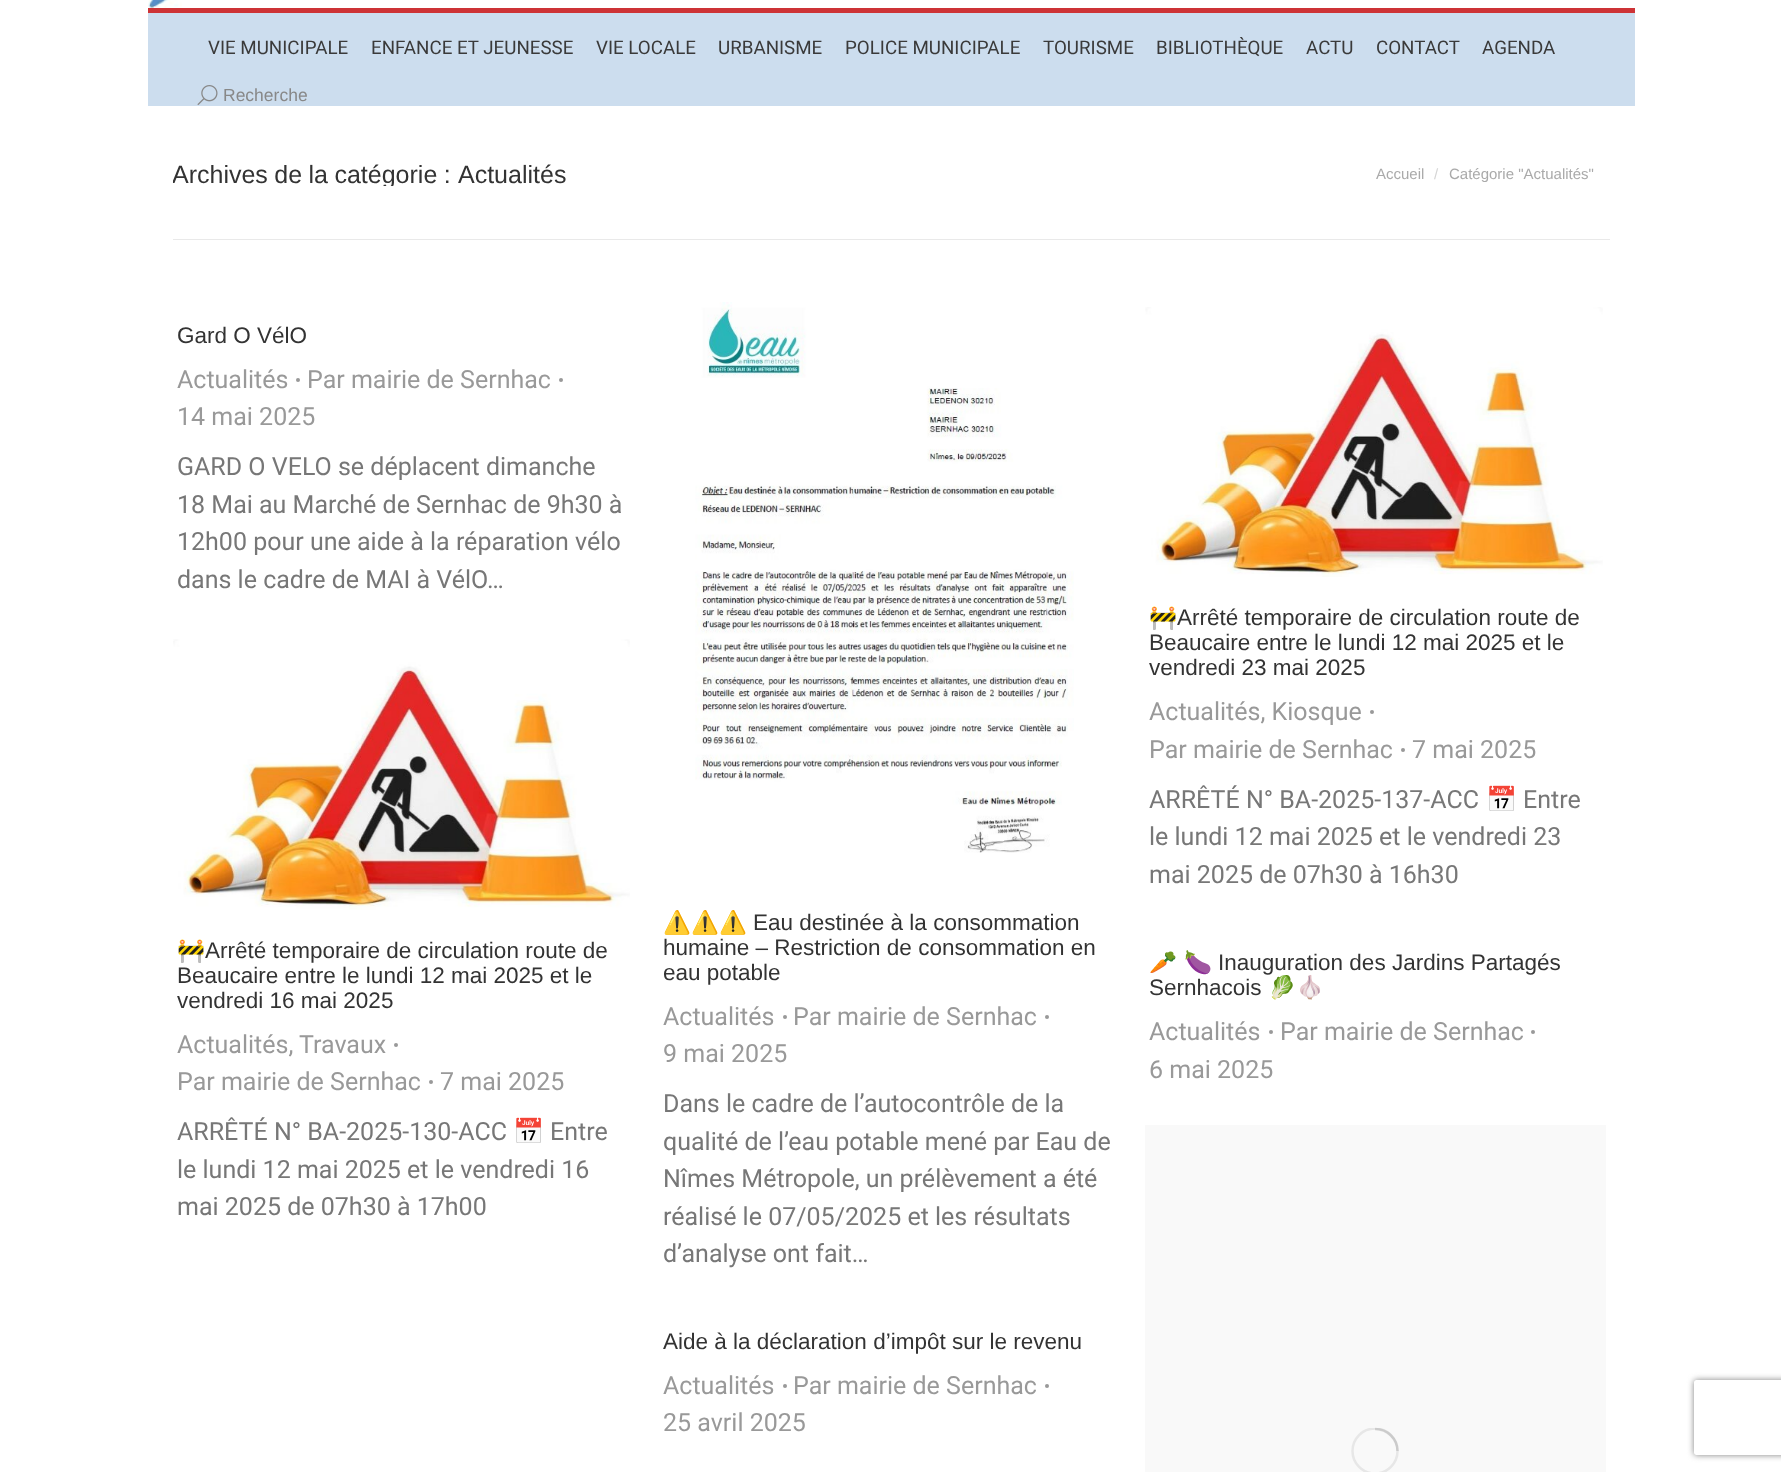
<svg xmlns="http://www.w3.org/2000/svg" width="1781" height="1472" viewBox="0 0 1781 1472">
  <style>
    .t1 { font: 18.75px Roboto; fill: #3a3a3a; }
    .t2 { font: 17.5px Liberation Sans; fill: #888; }
    .t3 { font: 25px Liberation Sans; fill: #333; }
    .t4 { font: 15px Liberation Sans; fill: #aaa; }
    .t5 { font: 15px Liberation Sans; fill: #d5d5d5; }
    .t6 { font: 22.5px Liberation Sans; fill: #333; }
    .t7 { font: 25px Roboto; fill: #999; }
    .t8 { font: 25px Roboto; fill: #777; }
    .t9 { font: 22.5px Noto Color Emoji; fill: #333; }
    .t10 { font: 25px Noto Color Emoji; fill: #777; }
  </style>
  <defs>
    <clipPath id="clip1"><rect x="173" y="161" width="393" height="25"/></clipPath>
    <clipPath id="clip2"><rect x="1351" y="1428" width="48" height="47"/></clipPath>
    <clipPath id="clip3"><path d="M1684 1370H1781V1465H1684ZM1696.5 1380H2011.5C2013 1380 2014 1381 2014 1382.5V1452.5C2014 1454 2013 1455 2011.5 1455H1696.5C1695 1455 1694 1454 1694 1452.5V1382.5C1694 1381 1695 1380 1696.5 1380Z" clip-rule="evenodd"/></clipPath>
  </defs>
  <rect width="100%" height="100%" fill="#fff"/>
  <image x="148" y="0" width="34" height="8" href="images/1.png"/>
  <rect x="148" y="13" width="1487" height="93" fill="#cde"/>
  <rect x="148" y="8" width="1487" height="5" fill="#cd3336"/>
  <text x="208" y="54" class="t1">VIE MUNICIPALE</text>
  <text x="371" y="54" class="t1">ENFANCE ET JEUNESSE</text>
  <text x="596" y="54" class="t1">VIE LOCALE</text>
  <text x="718" y="54" class="t1">URBANISME</text>
  <text x="845" y="54" class="t1">POLICE MUNICIPALE</text>
  <text x="1043" y="54" class="t1">TOURISME</text>
  <text x="1156" y="54" class="t1">BIBLIOTHÈQUE</text>
  <text x="1306" y="54" class="t1">ACTU</text>
  <text x="1376" y="54" class="t1">CONTACT</text>
  <text x="1482" y="54" class="t1">AGENDA</text>
  <image x="197" y="85" width="21" height="20" href="images/2.png"/>
  <text x="223" y="101" class="t2">Recherche</text>
  <g clip-path="url(#clip1)">
    <text x="172" y="183" word-spacing="-0.5" class="t3">Archives de la catégorie :</text>
  </g>
  <text x="458" y="183" class="t3">Actualités</text>
  <text x="1376" y="179" class="t4">Accueil</text>
  <text x="1434" y="179" class="t5">/</text>
  <text x="1449" y="179" class="t4">Catégorie "Actualités"</text>
  <rect x="173" y="239" width="1437" height="1" fill="#e9e9e9"/>
  <text x="177" y="343" class="t6">Gard O VélO</text>
  <text x="177" y="388" class="t7">Actualités</text>
  <circle cx="298" cy="380" r="2" fill="#999"/>
  <text x="307" y="388" class="t7">Par mairie de Sernhac</text>
  <circle cx="561" cy="380" r="2" fill="#999"/>
  <text x="177" y="425" class="t7">14 mai 2025</text>
  <text x="177" y="475" class="t8">GARD O VELO se déplacent dimanche</text>
  <text x="177" y="513" class="t8">18 Mai au Marché de Sernhac de 9h30 à</text>
  <text x="177" y="550" class="t8">12h00 pour une aide à la réparation vélo</text>
  <text x="177" y="588" class="t8">dans le cadre de MAI à VélO…</text>
  <image x="1145" y="307" width="458" height="270" href="images/3.png"/>
  <text x="1149" y="625" class="t9">🚧</text>
  <text x="1177" y="625" class="t6">Arrêté temporaire de circulation route de</text>
  <text x="1149" y="650" class="t6">Beaucaire entre le lundi 12 mai 2025 et le</text>
  <text x="1149" y="675" class="t6">vendredi 23 mai 2025</text>
  <text x="1149" y="720" class="t7">Actualités, Kiosque</text>
  <circle cx="1372" cy="712" r="2" fill="#999"/>
  <text x="1149" y="758" class="t7">Par mairie de Sernhac</text>
  <circle cx="1403" cy="750" r="2" fill="#999"/>
  <text x="1412" y="758" class="t7">7 mai 2025</text>
  <text x="1149" y="808" class="t8">ARRÊTÉ N° BA-2025-137-ACC</text>
  <text x="1486" y="808" class="t10">📅</text>
  <text x="1523" y="808" class="t8">Entre</text>
  <text x="1149" y="845" class="t8">le lundi 12 mai 2025 et le vendredi 23</text>
  <text x="1149" y="883" class="t8">mai 2025 de 07h30 à 16h30</text>
  <image x="173" y="639" width="457" height="271" href="images/4.png"/>
  <text x="177" y="958" class="t9">🚧</text>
  <text x="205" y="958" class="t6">Arrêté temporaire de circulation route de</text>
  <text x="177" y="983" class="t6">Beaucaire entre le lundi 12 mai 2025 et le</text>
  <text x="177" y="1008" class="t6">vendredi 16 mai 2025</text>
  <text x="177" y="1053" class="t7">Actualités,</text>
  <text x="299" y="1053" class="t7">Travaux</text>
  <circle cx="396" cy="1045" r="2" fill="#999"/>
  <text x="177" y="1090" class="t7">Par mairie de Sernhac</text>
  <circle cx="431" cy="1082" r="2" fill="#999"/>
  <text x="440" y="1090" class="t7">7 mai 2025</text>
  <text x="177" y="1140" class="t8">ARRÊTÉ N° BA-2025-130-ACC</text>
  <text x="513" y="1140" class="t10">📅</text>
  <text x="550" y="1140" class="t8">Entre</text>
  <text x="177" y="1178" class="t8">le lundi 12 mai 2025 et le vendredi 16</text>
  <text x="177" y="1215" class="t8">mai 2025 de 07h30 à 17h00</text>
  <image x="695" y="302" width="379" height="551" href="images/5.png"/>
  <text x="663" y="930" class="t9">⚠️⚠️⚠️</text>
  <text x="753" y="930" class="t6">Eau destinée à la consommation</text>
  <text x="663" y="955" class="t6">humaine – Restriction de consommation en</text>
  <text x="663" y="980" class="t6">eau potable</text>
  <text x="663" y="1025" class="t7">Actualités</text>
  <circle cx="785" cy="1017" r="2" fill="#999"/>
  <text x="793" y="1025" class="t7">Par mairie de Sernhac</text>
  <circle cx="1047" cy="1017" r="2" fill="#999"/>
  <text x="663" y="1062" class="t7">9 mai 2025</text>
  <text x="663" y="1112" class="t8">Dans le cadre de l’autocontrôle de la</text>
  <text x="663" y="1150" class="t8">qualité de l’eau potable mené par Eau de</text>
  <text x="663" y="1187" class="t8">Nîmes Métropole, un prélèvement a été</text>
  <text x="663" y="1225" class="t8">réalisé le 07/05/2025 et les résultats</text>
  <text x="663" y="1262" class="t8">d’analyse ont fait…</text>
  <text x="1149" y="970" class="t9">🥕</text>
  <text x="1184" y="970" class="t9">🍆</text>
  <text x="1218" y="970" class="t6">Inauguration des Jardins Partagés</text>
  <text x="1149" y="995" class="t6">Sernhacois</text>
  <text x="1268" y="995" class="t9">🥬🧄</text>
  <text x="1149" y="1040" class="t7">Actualités</text>
  <circle cx="1271" cy="1032" r="2" fill="#999"/>
  <text x="1280" y="1040" class="t7">Par mairie de Sernhac</text>
  <circle cx="1533" cy="1032" r="2" fill="#999"/>
  <text x="1149" y="1078" class="t7">6 mai 2025</text>
  <text x="663" y="1349" class="t6">Aide à la déclaration d’impôt sur le revenu</text>
  <text x="663" y="1394" class="t7">Actualités</text>
  <circle cx="785" cy="1386" r="2" fill="#999"/>
  <text x="793" y="1394" class="t7">Par mairie de Sernhac</text>
  <circle cx="1047" cy="1386" r="2" fill="#999"/>
  <text x="663" y="1431" class="t7">25 avril 2025</text>
  <rect x="1145" y="1125" width="461" height="347" fill="#f9f9f9"/>
  <g clip-path="url(#clip2)">
    <circle cx="1375" cy="1451" r="22.5" fill="none" stroke="#e7e7e7" stroke-width="2.5"/>
  </g>
  <path d="M1397.5 1451C1397.5 1439 1387.5 1429 1375 1429" fill="none" stroke="#77777740" stroke-width="2.5"/>
  <g clip-path="url(#clip3)">
    <rect x="1694" y="1380" width="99" height="75" rx="2.5" fill="#808080" filter="blur(3px)"/>
  </g>
</svg>
